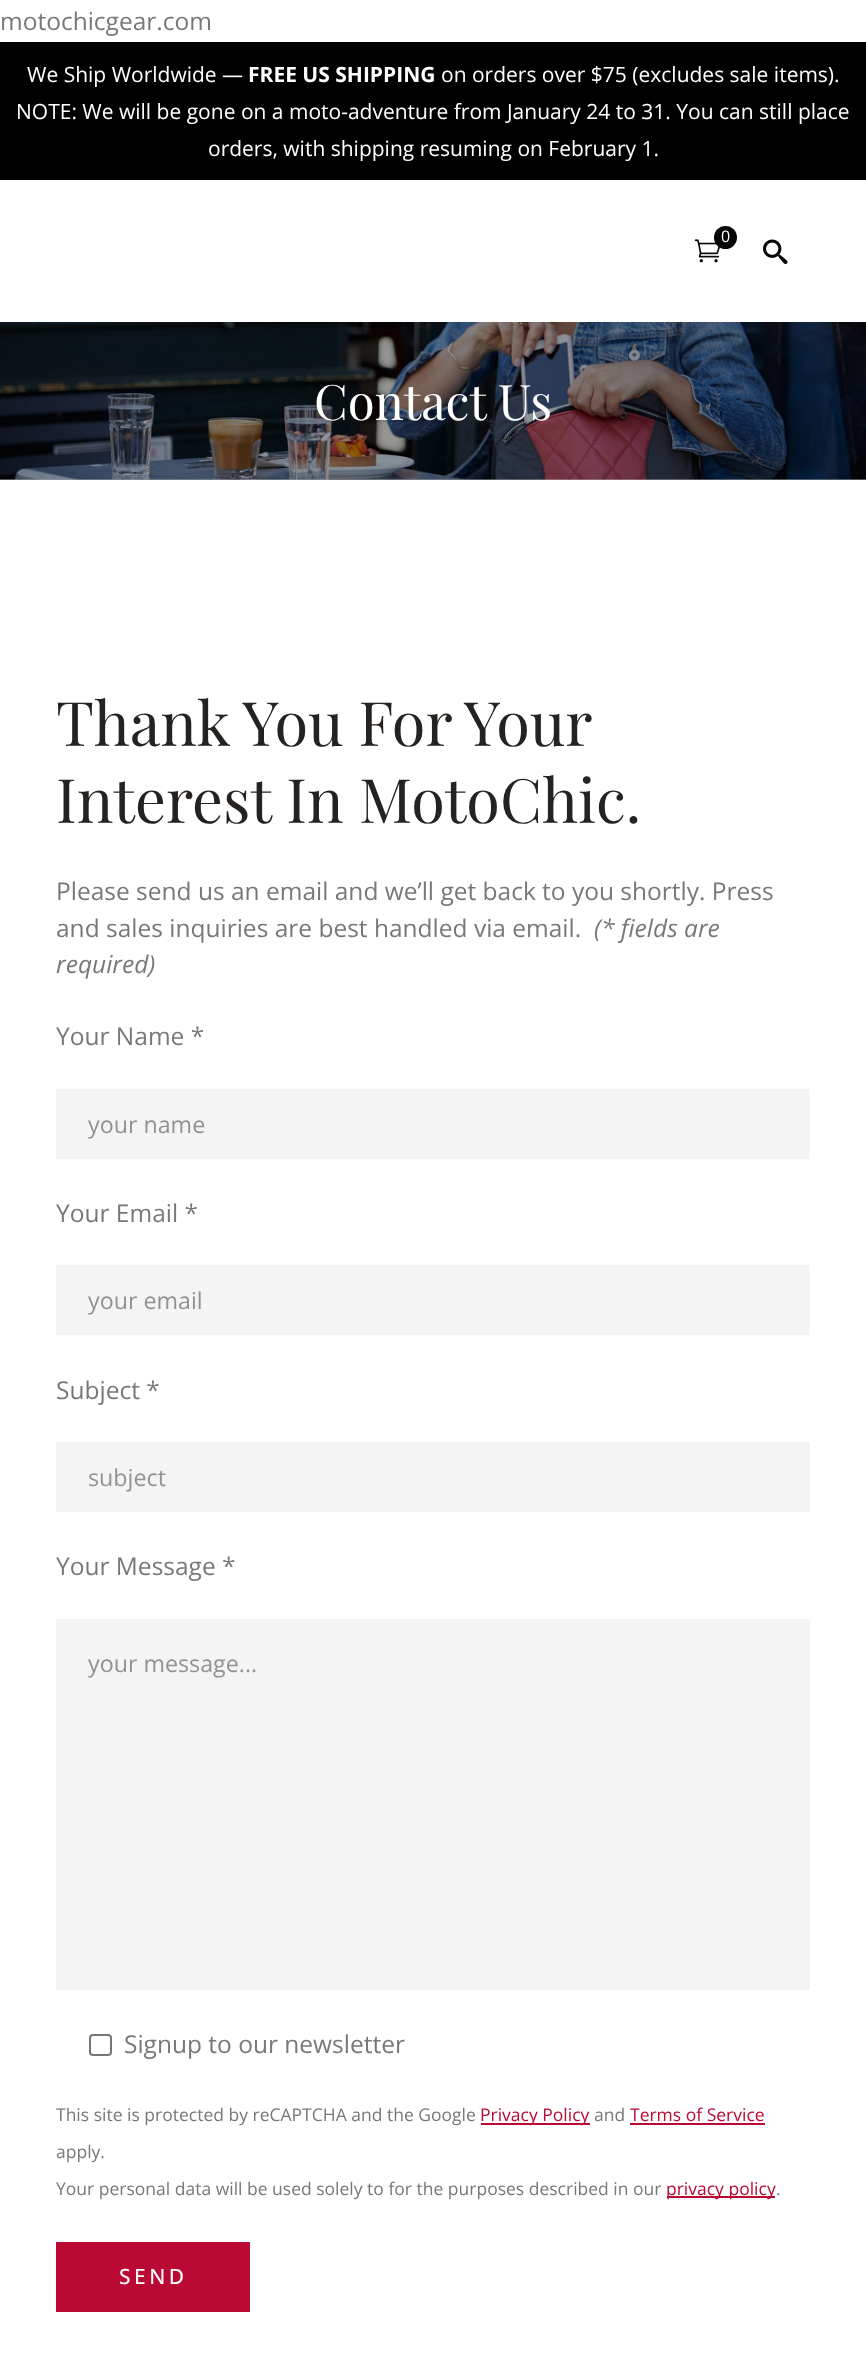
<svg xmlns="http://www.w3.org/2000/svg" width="866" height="2368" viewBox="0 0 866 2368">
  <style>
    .t1 { font: 24.5px Open Sans; fill: #787875; }
    .t2 { font: 21px Open Sans; fill: #fff; }
    .t3 { font: bold 21px Open Sans; fill: #fff; }
    .t4 { font: 16px Open Sans; fill: #fff; }
    .t5 { font: 49px Playfair Display; fill: #fff; }
    .t6 { font: 61.25px Playfair Display; fill: #25221f; }
    .t7 { font: italic 24.5px Open Sans; fill: #787875; }
    .t8 { font: 23.25px Open Sans; fill: #929292; }
    .t9 { font: 17.5px Open Sans; fill: #787875; }
    .t10 { font: 17.5px Open Sans; fill: #ba0932; }
    .t11 { font: 500 21px Open Sans; letter-spacing: 3.5px; fill: #fff; }
  </style>
  <defs>
    <clipPath id="clip1"><rect x="88" y="1108" width="691" height="31"/></clipPath>
    <clipPath id="clip2"><rect x="88" y="1285" width="691" height="31"/></clipPath>
  </defs>
  <rect width="100%" height="100%" fill="#fff"/>
  <text x="0" y="30" class="t1">motochicgear.com</text>
  <rect x="0" y="42" width="866" height="138" fill="#000"/>
  <text x="27" y="82" class="t2">We Ship Worldwide —</text>
  <text x="248" y="82" class="t3">FREE US SHIPPING</text>
  <text x="441" y="82" class="t2">on orders over $75 (excludes sale items).</text>
  <text x="16" y="119" class="t2">NOTE: We will be gone on a moto-adventure from January 24 to 31. You can still place</text>
  <text x="208" y="156" class="t2">orders, with shipping resuming on February 1.</text>
  <image x="694" y="239" width="26" height="24" href="images/1.png"/>
  <circle cx="725.5" cy="237.5" r="11.5" fill="#050704"/>
  <text x="721" y="242" class="t4">0</text>
  <image x="763" y="239" width="25" height="25" href="images/2.png"/>
  <image x="0" y="479" width="866" height="1" href="images/3.png"/>
  <image x="0" y="322" width="866" height="158" href="images/4.png"/>
  <text x="314" y="420" class="t5">Contact Us</text>
  <text x="56" y="746" word-spacing="-0.5" class="t6">Thank You For Your</text>
  <text x="56" y="823" class="t6">Interest In MotoChic.</text>
  <text x="56" y="900" class="t1">Please send us an email and we’ll get back to you shortly. Press</text>
  <text x="56" y="937" class="t1">and sales inquiries are best handled via email.</text>
  <text x="594" y="937" class="t7">(* fields are</text>
  <text x="56" y="973" class="t7">required)</text>
  <text x="56" y="1045" class="t1">Your Name *</text>
  <rect x="56" y="1089" width="754" height="70" fill="#f4f4f4"/>
  <g clip-path="url(#clip1)">
    <text x="88" y="1133" class="t8">your name</text>
  </g>
  <text x="56" y="1222" class="t1">Your Email *</text>
  <rect x="56" y="1265" width="754" height="70" fill="#f4f4f4"/>
  <g clip-path="url(#clip2)">
    <text x="88" y="1309" class="t8">your email</text>
  </g>
  <text x="56" y="1399" class="t1">Subject *</text>
  <rect x="56" y="1442" width="754" height="70" fill="#f4f4f4"/>
  <text x="88" y="1486" class="t8">subject</text>
  <text x="56" y="1575" class="t1">Your Message *</text>
  <rect x="56" y="1619" width="754" height="371" fill="#f4f4f4"/>
  <text x="88" y="1672" class="t8">your message...</text>
  <rect x="90" y="2035" width="21" height="20" rx="3" fill="none" stroke="#767676" stroke-width="2"/>
  <text x="124" y="2053" class="t1">Signup to our newsletter</text>
  <text x="56" y="2121" class="t9">This site is protected by reCAPTCHA and the Google</text>
  <rect x="481" y="2123" width="109" height="2" fill="#ba0932"/>
  <text x="480" y="2121" class="t10">Privacy Policy</text>
  <text x="594" y="2121" class="t9">and</text>
  <text x="630" y="2121" class="t10">Terms of Service</text>
  <rect x="630" y="2123" width="135" height="2" fill="#ba0932"/>
  <text x="56" y="2158" class="t9">apply.</text>
  <text x="56" y="2195" class="t9">Your personal data will be used solely to for the purposes described in our</text>
  <rect x="667" y="2196" width="108" height="2" fill="#ba0932"/>
  <text x="666" y="2195" class="t10">privacy policy</text>
  <text x="776" y="2195" class="t9">.</text>
  <rect x="56" y="2242" width="194" height="70" fill="#ba0932"/>
  <text x="119" y="2284" class="t11">SEND</text>
</svg>
